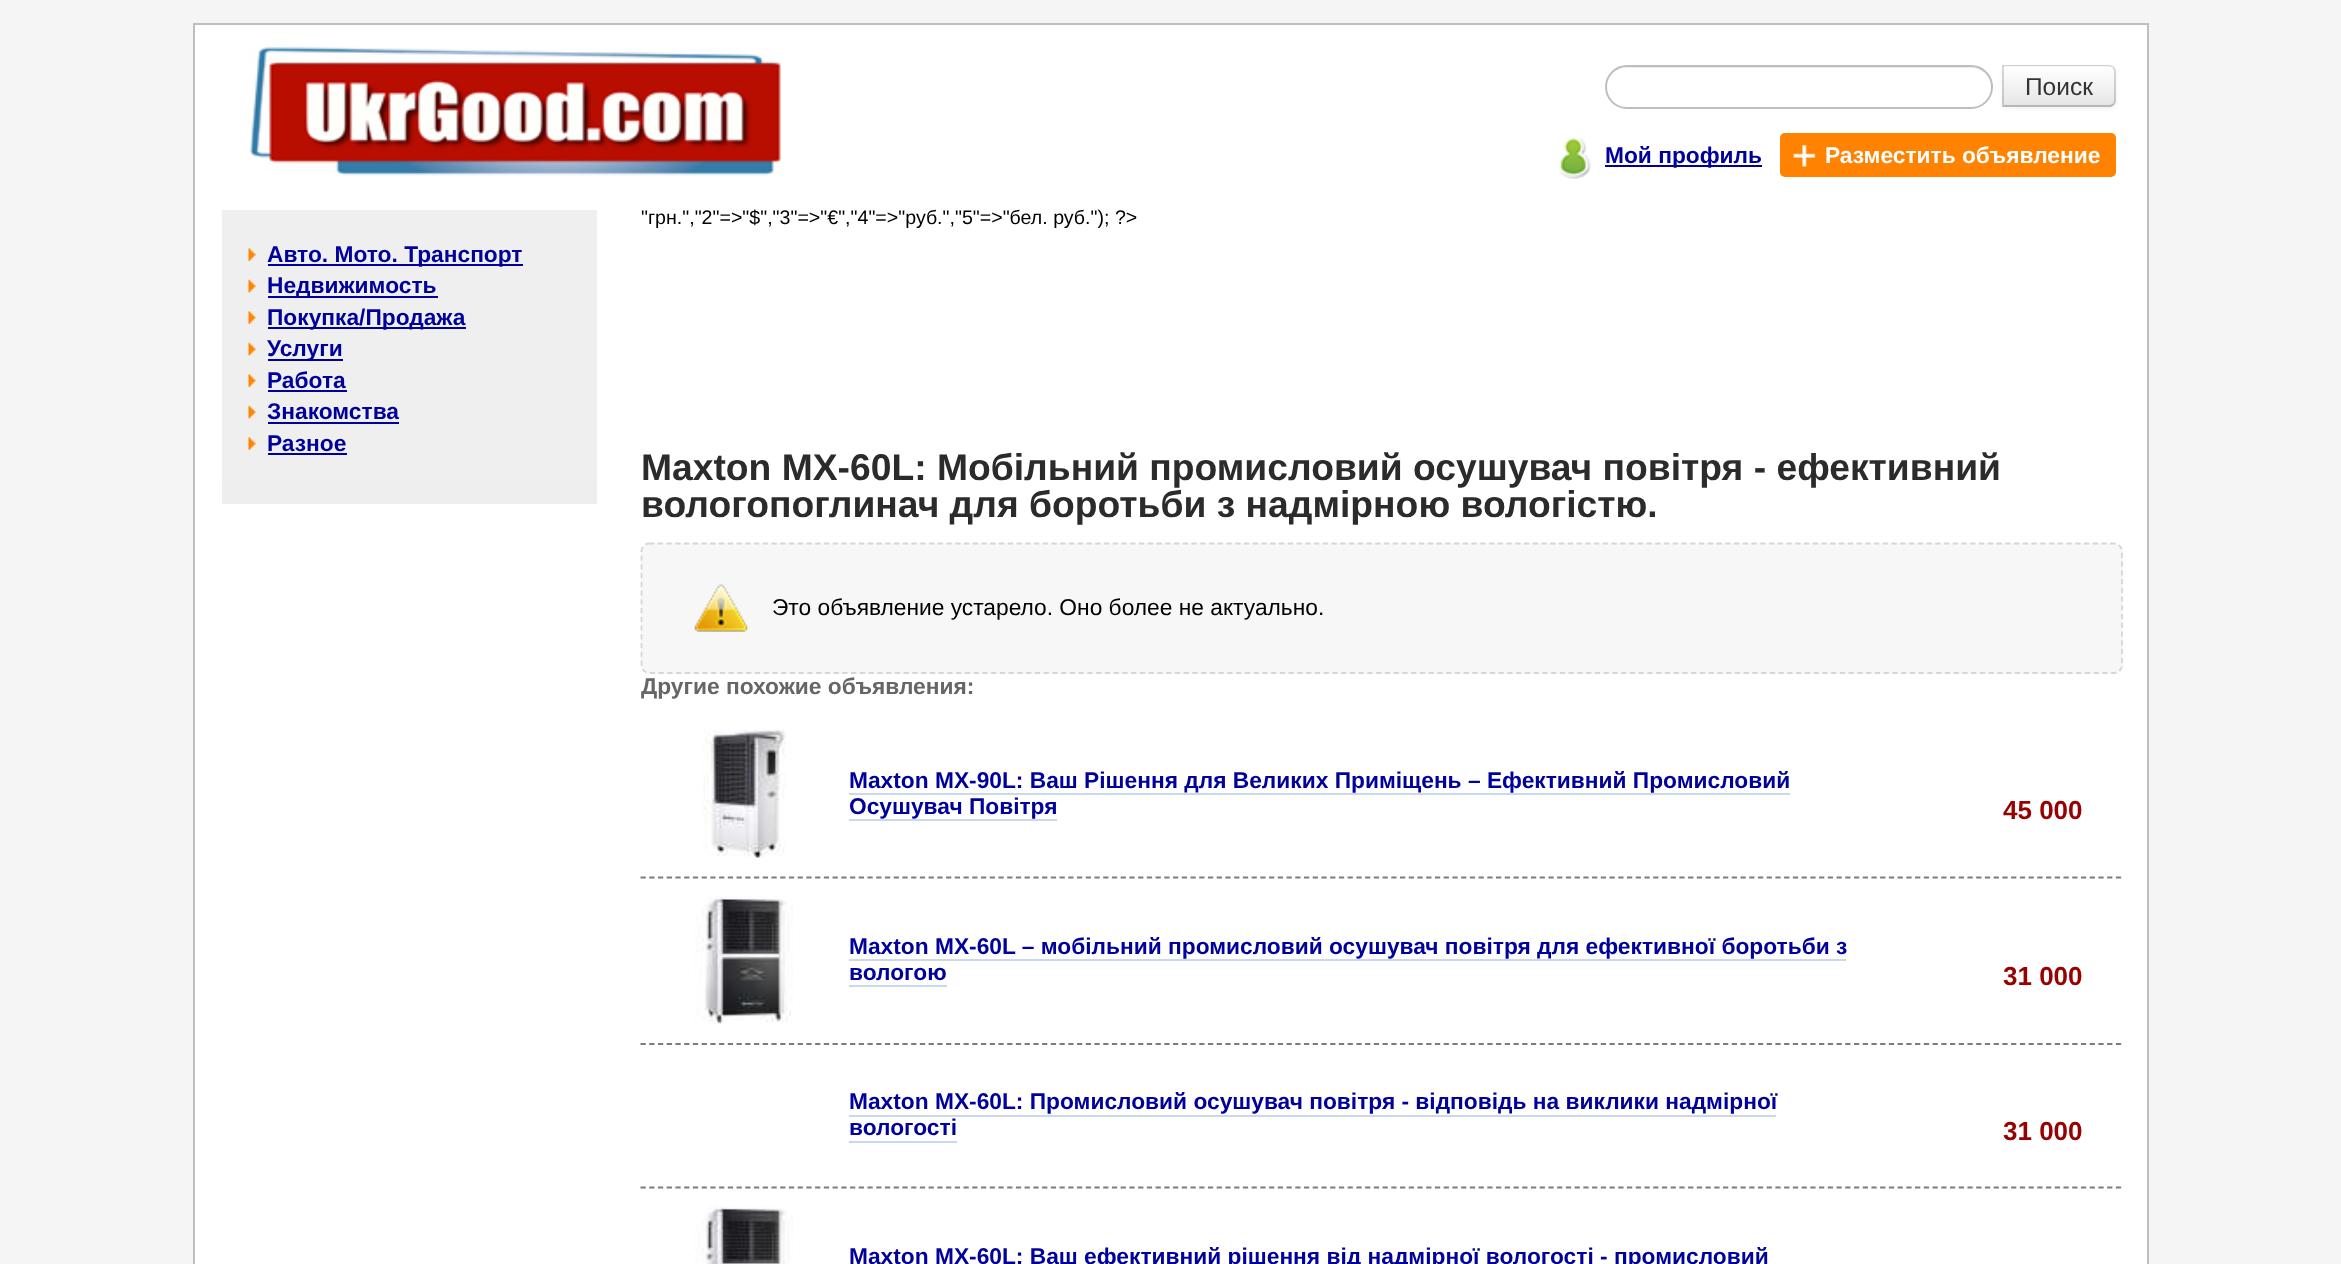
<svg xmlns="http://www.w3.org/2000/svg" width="2341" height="1264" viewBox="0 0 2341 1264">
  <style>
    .t1 { font: 24.5px Liberation Sans; fill: #333; }
    .t2 { font: bold 22.75px Liberation Sans; fill: #00009c; }
    .t3 { font: bold 22.75px Liberation Sans; fill: #fff; }
    .t4 { font: 19.6px Liberation Sans; fill: #000; }
    .t5 { font: bold 37.25px Liberation Sans; fill: #2b2b2b; }
    .t6 { font: 22.75px Liberation Sans; fill: #000; }
    .t7 { font: bold 22.75px Liberation Sans; fill: #666; }
    .t8 { font: bold 26px Liberation Sans; fill: #900; }
  </style>
  <defs>
    <clipPath id="clip1"><path d="M2002 65H2109C2113 65 2116 68 2116 72V100C2116 104 2113 107 2109 107H2002Z"/></clipPath>
    <linearGradient id="g1" gradientUnits="userSpaceOnUse" x1="2059" y1="67" x2="2059" y2="105"><stop offset="0" stop-color="#fff"/><stop offset="1" stop-color="#e6e6e6"/></linearGradient>
  </defs>
  <rect width="100%" height="100%" fill="#f5f5f5"/>
  <rect x="194" y="24" width="1954" height="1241" fill="#fff" stroke="#bdbebd" stroke-width="2"/>
  <image x="249" y="46" width="532" height="130" href="images/1.png"/>
  <path d="M1627 68H1971C1982 68 1992 77 1992 88V87C1992 76 1983 67 1972 67H1627C1620 67 1613 71 1610 77C1614 71 1620 68 1627 68Z" fill="#ececec"/>
  <rect x="1606" y="66" width="386" height="42" rx="21" fill="none" stroke="#bdbebd" stroke-width="2"/>
  <rect x="2002" y="67" width="114" height="42" rx="7" fill="#0000000d" filter="blur(2px)"/>
  <path d="M2002 65H2109C2113 65 2116 68 2116 72V100C2116 104 2113 107 2109 107H2002Z" fill="#f5f5f5"/>
  <g clip-path="url(#clip1)">
    <rect x="2002" y="67" width="114" height="38" fill="url(#g1)"/>
  </g>
  <path d="M2004 66H2109C2110 66 2112 67 2113 68L2114 67L2110 65H2002L2004 67Z" fill="#00000026"/>
  <path d="M2113.5 67C2114.5 67.5 2115.5 68.5 2116 70V102C2115.5 103 2115 104 2114 105L2112.5 103.5C2113.5 103 2114 101.5 2114 100V72C2114 70.5 2113.5 69 2112.5 68Z" fill="#00000026"/>
  <path d="M2111 107H2002L2004 105H2110L2113 104L2114 105Z" fill="#00000040"/>
  <path d="M2002 107L2004 105V67L2002 65Z" fill="#00000026"/>
  <text x="2025" y="95" class="t1">Поиск</text>
  <image x="1559" y="137" width="32" height="42" href="images/2.png"/>
  <rect x="1605" y="165" width="157" height="2" fill="#00009c"/>
  <text x="1605" y="163" class="t2">Мой профиль</text>
  <rect x="1780" y="133" width="336" height="44" rx="5" fill="#ff8300"/>
  <image x="1793" y="144" width="23" height="23" href="images/3.png"/>
  <text x="1825" y="163" class="t3">Разместить объявление</text>
  <rect x="222" y="210" width="375" height="268" fill="#efefef"/>
  <image x="248" y="248" width="8" height="13" href="images/4.png"/>
  <rect x="268" y="264" width="255" height="2" fill="#00009c"/>
  <text x="267" y="262" class="t2">Авто. Мото. Транспорт</text>
  <image x="248" y="279" width="8" height="14" href="images/5.png"/>
  <rect x="268" y="296" width="170" height="2" fill="#00009c"/>
  <text x="267" y="293" class="t2">Недвижимость</text>
  <image x="248" y="311" width="8" height="13" href="images/4.png"/>
  <rect x="268" y="327" width="198" height="2" fill="#00009c"/>
  <text x="267" y="325" class="t2">Покупка/Продажа</text>
  <image x="248" y="342" width="8" height="14" href="images/5.png"/>
  <rect x="268" y="359" width="75" height="2" fill="#00009c"/>
  <text x="267" y="356" class="t2">Услуги</text>
  <image x="248" y="374" width="8" height="13" href="images/4.png"/>
  <text x="267" y="388" class="t2">Работа</text>
  <rect x="268" y="390" width="79" height="2" fill="#00009c"/>
  <image x="248" y="405" width="8" height="14" href="images/5.png"/>
  <text x="267" y="419" class="t2">Знакомства</text>
  <rect x="268" y="422" width="131" height="2" fill="#00009c"/>
  <image x="248" y="437" width="8" height="13" href="images/4.png"/>
  <text x="267" y="451" class="t2">Разное</text>
  <rect x="268" y="453" width="79" height="2" fill="#00009c"/>
  <rect x="222" y="478" width="375" height="26" fill="#eee"/>
  <text x="641" y="224" class="t4">"грн.","2"=&gt;"$","3"=&gt;"€","4"=&gt;"руб.","5"=&gt;"бел. руб."); ?&gt;</text>
  <text x="641" y="480" class="t5">Maxton MX-60L: Мобільний промисловий осушувач повітря - ефективний</text>
  <text x="641" y="517" class="t5">вологопоглинач для боротьби з надмірною вологістю.</text>
  <rect x="641" y="543" width="1482" height="131" rx="9" fill="#f7f7f7"/>
  <path d="M649 543.5H2114C2118.5 543.5 2122 547 2122 551V665C2122 669.5 2118.5 673 2114 673H649C645 673 641.5 669.5 641.5 665V551C641.5 547 645 543.5 649 543.5Z" fill="none" stroke="#d7d7d1" stroke-width="1.8" stroke-dasharray="5.25 3.5"/>
  <image x="694" y="584" width="54" height="48" href="images/6.png"/>
  <text x="772" y="615" class="t6">Это объявление устарело. Оно более не актуально.</text>
  <text x="641" y="694" class="t7">Другие похожие объявления:</text>
  <image x="702" y="729" width="84" height="129" href="images/7.png"/>
  <text x="849" y="788" class="t2">Maxton MX-90L: Ваш Рішення для Великих Приміщень – Ефективний Промисловий</text>
  <rect x="849" y="793" width="941" height="2" fill="#c9d8ef"/>
  <text x="849" y="814" class="t2">Осушувач Повітря</text>
  <rect x="849" y="819" width="208" height="2" fill="#c9d8ef"/>
  <text x="2003" y="819" class="t8">45 000</text>
  <path d="M640.5 877.5H2123" fill="none" stroke="#7c7c7c" stroke-width="1.8" stroke-dasharray="5.25 3.48"/>
  <image x="695" y="896" width="98" height="128" href="images/8.png"/>
  <text x="849" y="954" class="t2">Maxton MX-60L – мобільний промисловий осушувач повітря для ефективної боротьби з</text>
  <rect x="849" y="959" width="997" height="2" fill="#c9d8ef"/>
  <text x="849" y="980" class="t2">вологою</text>
  <rect x="849" y="985" width="98" height="2" fill="#c9d8ef"/>
  <text x="2003" y="985" class="t8">31 000</text>
  <path d="M640.5 1044H2123" fill="none" stroke="#7c7c7c" stroke-width="1.8" stroke-dasharray="5.25 3.48"/>
  <text x="849" y="1109" class="t2">Maxton MX-60L: Промисловий осушувач повітря - відповідь на виклики надмірної</text>
  <text x="849" y="1135" class="t2">вологості</text>
  <rect x="849" y="1115" width="927" height="2" fill="#c9d8ef"/>
  <rect x="849" y="1141" width="108" height="2" fill="#c9d8ef"/>
  <text x="2003" y="1140" class="t8">31 000</text>
  <path d="M640.5 1187.5H2123" fill="none" stroke="#7c7c7c" stroke-width="1.8" stroke-dasharray="5.25 3.48"/>
  <image x="695" y="1206" width="98" height="58" href="images/9.png"/>
  <text x="849" y="1264" class="t2">Maxton MX-60L: Ваш ефективний рішення від надмірної вологості - промисловий</text>
</svg>
